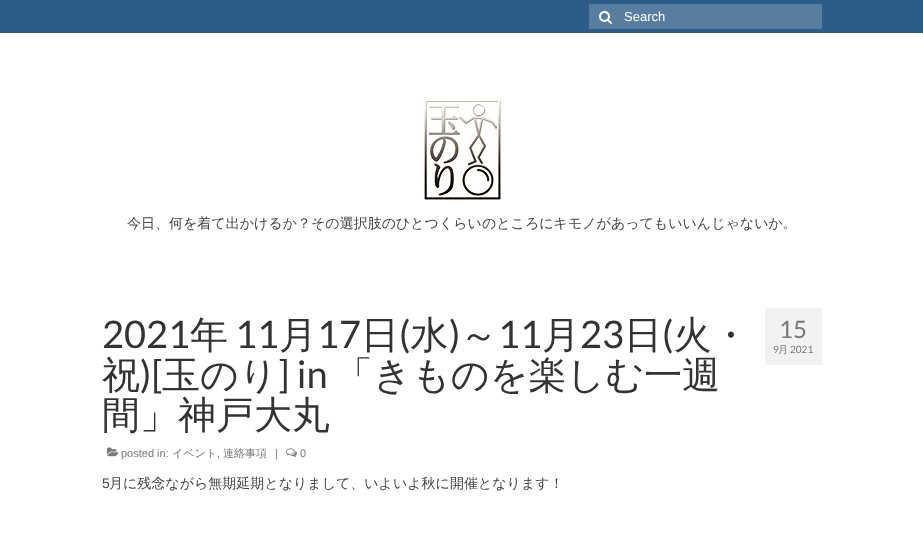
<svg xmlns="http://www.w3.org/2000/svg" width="923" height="554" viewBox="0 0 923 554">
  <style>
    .t1 { font: 13px Liberation Sans; fill: #fff; }
    .t2 { font: 500 14px WenQuanYi Zen Hei; fill: #444; }
    .t3 { font: 500 38px WenQuanYi Zen Hei; fill: #333; }
    .t4 { font: 38px Lato; fill: #333; }
    .t5 { font: 11px Liberation Sans; fill: #777; }
    .t6 { font: 500 11px WenQuanYi Zen Hei; fill: #777; }
    .t7 { font: 24px Lato; fill: #777; }
    .t8 { font: 10px Lato; fill: #777; }
    .t9 { font: 500 10px WenQuanYi Zen Hei; fill: #777; }
    .t10 { font: 14px Liberation Sans; fill: #444; }
  </style>
  <rect width="100%" height="100%" fill="#fff"/>
  <rect x="0" y="0" width="923" height="33" fill="#2d5c88"/>
  <rect x="589" y="4" width="233" height="25" fill="#577da0"/>
  <image x="599" y="11" width="13" height="13" href="images/1.png"/>
  <text x="624" y="21" class="t1">Search</text>
  <image x="420" y="97" width="82" height="103" href="images/2.png"/>
  <text x="127" y="228" class="t2">今日、何を着て出かけるか？その選択肢のひとつくらいのところにキモノがあってもいいんじゃないか。</text>
  <text x="190" y="348" class="t3">年</text>
  <text x="279" y="348" class="t3">月</text>
  <text x="361" y="348" class="t3">日 水 ～</text>
  <text x="624" y="348" class="t3">日 火・</text>
  <text x="102" y="348" class="t4">2021</text>
  <text x="235" y="348" class="t4">11</text>
  <text x="317" y="348" class="t4">17</text>
  <text x="399" y="348" class="t4">(</text>
  <text x="449" y="348" class="t4">)</text>
  <text x="498" y="348" class="t4">11</text>
  <text x="542" y="348" class="t3">月</text>
  <text x="580" y="348" class="t4">23</text>
  <text x="662" y="348" class="t4">(</text>
  <text x="102" y="388" class="t3">祝</text>
  <text x="140" y="388" class="t4">)[</text>
  <text x="162" y="388" class="t3">玉のり</text>
  <text x="278" y="388" class="t4">] in</text>
  <text x="335" y="388" class="t3">「きものを楽しむ一週</text>
  <text x="102" y="428" class="t3">間」神戸大丸</text>
  <image x="107" y="447" width="12" height="10" href="images/3.png"/>
  <text x="121" y="457" class="t5">posted in:</text>
  <text x="172" y="457" class="t6">イベント</text>
  <text x="217" y="457" class="t5">,</text>
  <text x="223" y="457" class="t6">連絡事項</text>
  <text x="275" y="457" class="t5">|</text>
  <image x="286" y="448" width="11" height="9" href="images/4.png"/>
  <text x="300" y="457" class="t5">0</text>
  <rect x="765" y="308" width="57" height="57" fill="#f2f2f2"/>
  <text x="779" y="338" class="t7">15</text>
  <text x="773" y="353" class="t8">9</text>
  <text x="778" y="353" class="t9">月</text>
  <text x="790" y="353" class="t8">2021</text>
  <text x="102" y="488" class="t10">5</text>
  <text x="109" y="488" class="t2">月に残念ながら無期延期となりまして、いよいよ秋に開催となります！</text>
</svg>
